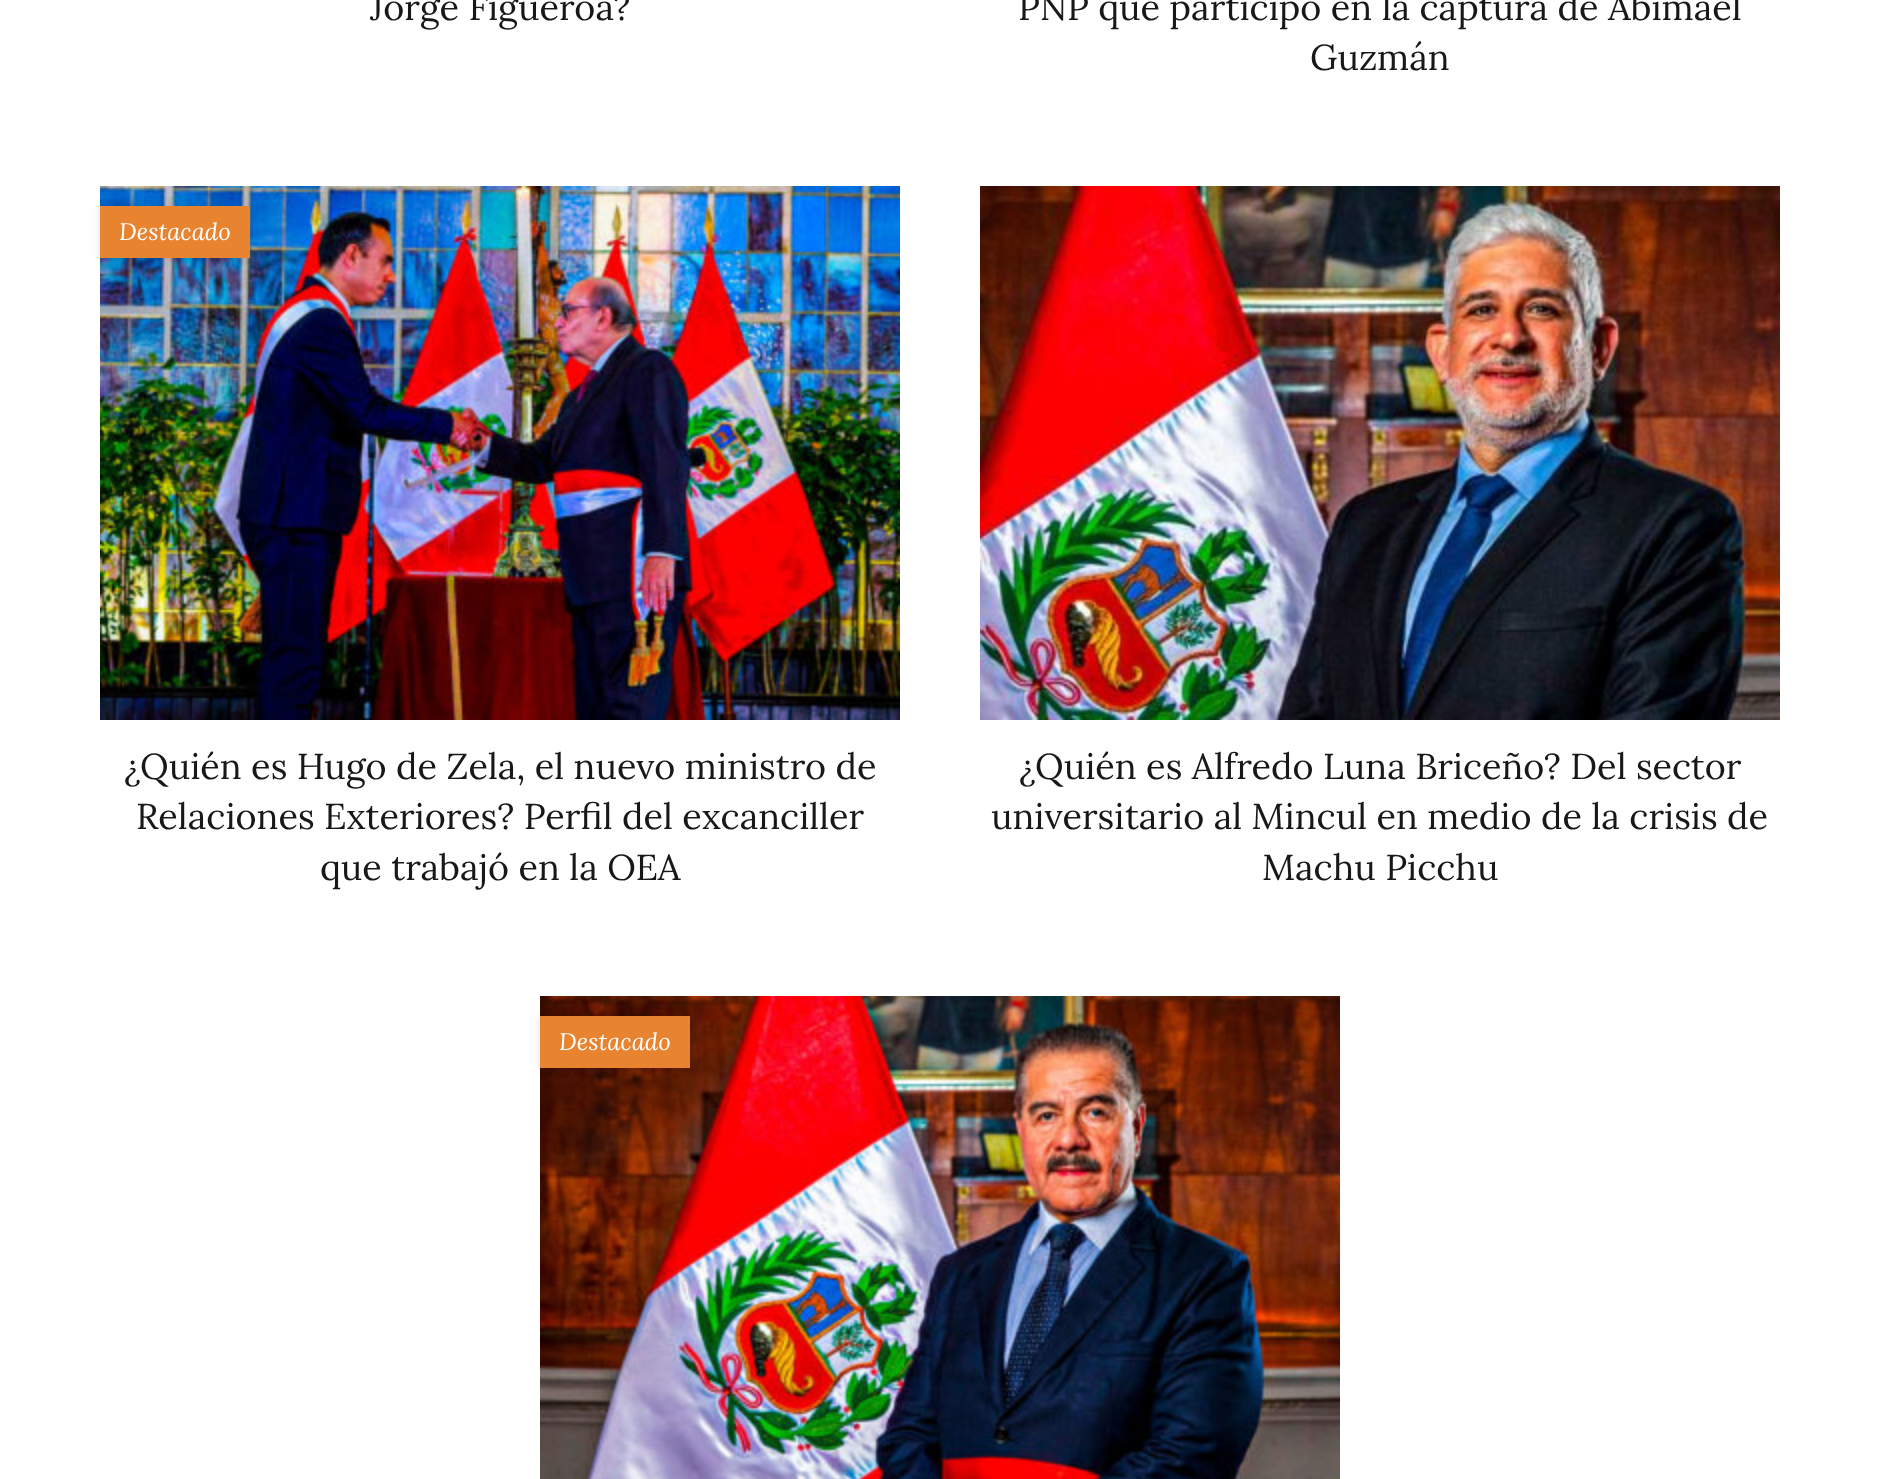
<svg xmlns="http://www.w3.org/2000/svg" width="1880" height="1479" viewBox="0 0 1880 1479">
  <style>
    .t1 { font: 36px Lora; fill: #181818; }
    .t2 { font: italic 24px Lora; fill: #fff; }
  </style>
  <rect width="100%" height="100%" fill="#fff"/>
  <text x="370" y="20" class="t1">Jorge Figueroa?</text>
  <text x="1018" y="20" class="t1">PNP que participó en la captura de Abimael</text>
  <text x="1310" y="70" class="t1">Guzmán</text>
  <image x="100" y="186" width="800" height="534" href="images/1.png"/>
  <rect x="100" y="206" width="150" height="52" fill="#0000001a" filter="blur(5px)"/>
  <rect x="100" y="206" width="150" height="52" fill="#e88330"/>
  <text x="119" y="240" class="t2">Destacado</text>
  <text x="124" y="779" class="t1">¿Quién es Hugo de Zela, el nuevo ministro de</text>
  <text x="136" y="829" class="t1">Relaciones Exteriores? Perfil del excanciller</text>
  <text x="320" y="880" class="t1">que trabajó en la OEA</text>
  <image x="980" y="186" width="800" height="534" href="images/2.png"/>
  <text x="1019" y="779" class="t1">¿Quién es Alfredo Luna Briceño? Del sector</text>
  <text x="991" y="829" class="t1">universitario al Mincul en medio de la crisis de</text>
  <text x="1262" y="880" class="t1">Machu Picchu</text>
  <image x="540" y="996" width="800" height="483" href="images/3.png"/>
  <rect x="540" y="1016" width="150" height="52" fill="#0000001a" filter="blur(5px)"/>
  <rect x="540" y="1016" width="150" height="52" fill="#e88330"/>
  <text x="559" y="1050" class="t2">Destacado</text>
</svg>
